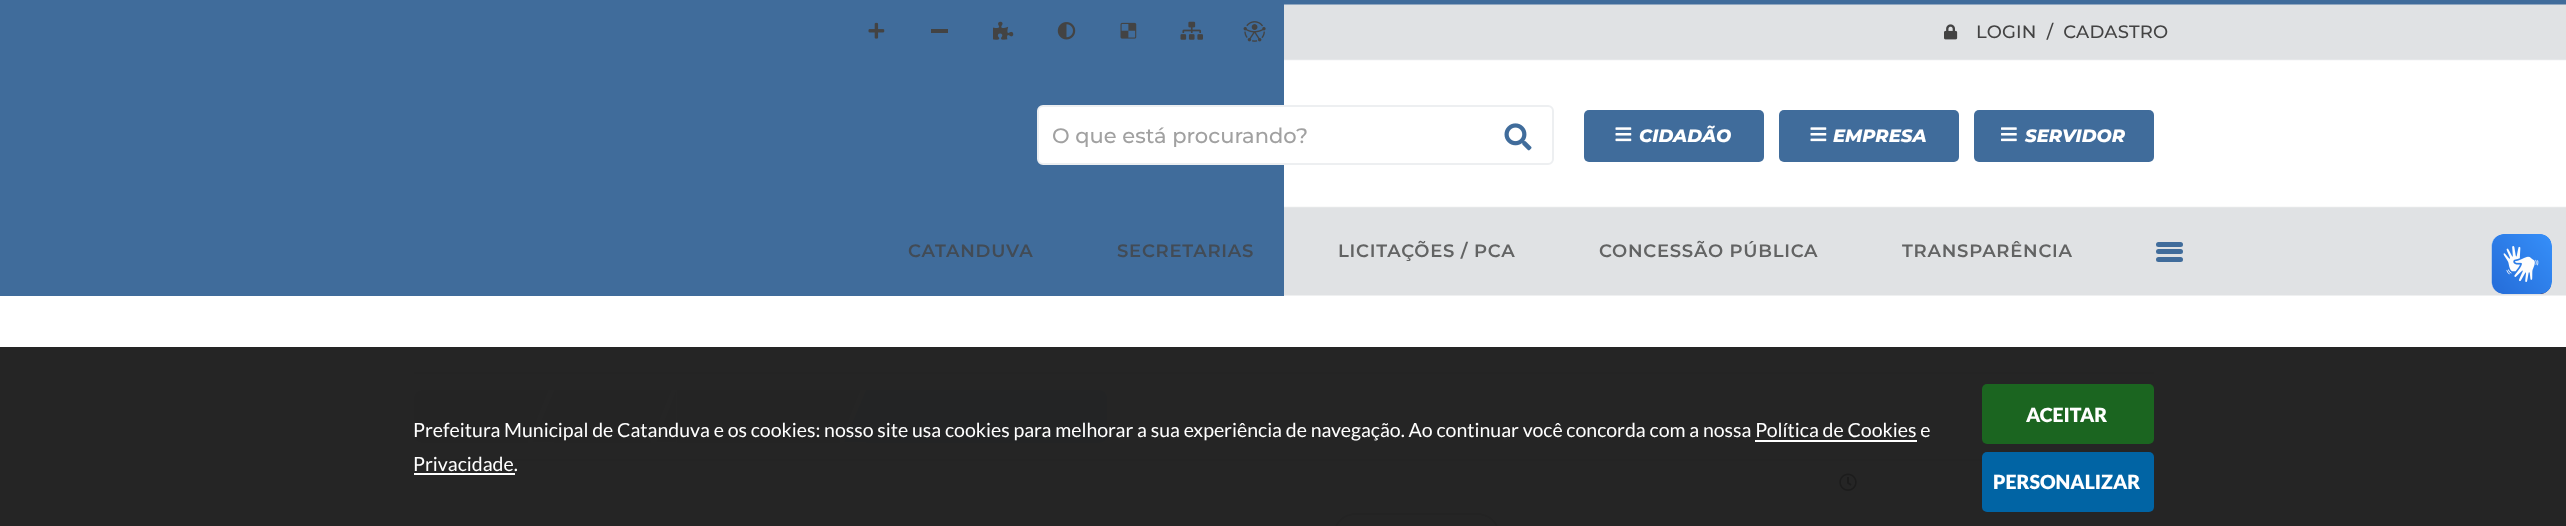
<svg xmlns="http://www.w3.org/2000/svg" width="2566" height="526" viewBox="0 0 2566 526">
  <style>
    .t1 { font: 500 18px Montserrat; letter-spacing: 0.2px; fill: #434343; }
    .t2 { font: 500 21px Montserrat; fill: #a1a1a1; }
    .t3 { font: italic 800 18px Montserrat; fill: #fff; }
    .t4 { font: 600 18px Montserrat; letter-spacing: 0.75px; fill: #424b55; }
    .t5 { font: 600 18px Montserrat; letter-spacing: 0.75px; fill: #626363; }
    .t6 { font: 19.5px Lato; fill: #fff; }
    .t7 { font: 900 19.5px Lato; fill: #fff; }
  </style>
  <rect width="100%" height="100%" fill="#fff"/>
  <image x="1284" y="0" width="1282" height="296" href="images/2.png"/>
  <image x="1944" y="24" width="14" height="16" href="images/1.png"/>
  <text x="1976" y="38" class="t1" xml:space="preserve">LOGIN  /  CADASTRO</text>
  <rect x="0" y="0" width="1284" height="296" fill="#406c9b"/>
  <image x="868" y="22" width="17" height="17" href="images/3.png"/>
  <rect x="931" y="29" width="17" height="4" fill="#434343"/>
  <image x="993" y="21" width="21" height="19" href="images/4.png"/>
  <image x="1057" y="22" width="19" height="18" href="images/5.png"/>
  <image x="1120" y="22" width="17" height="17" href="images/6.png"/>
  <image x="1180" y="21" width="23" height="19" href="images/7.png"/>
  <image x="1243" y="21" width="23" height="21" href="images/8.png"/>
  <rect x="1038" y="106" width="515" height="58" rx="5" fill="#fff" stroke="#edeff1" stroke-width="2"/>
  <text x="1052" y="143" class="t2">O que está procurando?</text>
  <image x="1504" y="123" width="28" height="28" href="images/9.png"/>
  <rect x="1584" y="110" width="180" height="52" rx="5" fill="#406c9b"/>
  <image x="1615" y="127" width="17" height="15" href="images/10.png"/>
  <text x="1639" y="142" class="t3">CIDADÃO</text>
  <rect x="1779" y="110" width="180" height="52" rx="5" fill="#406c9b"/>
  <image x="1810" y="127" width="17" height="15" href="images/10.png"/>
  <text x="1833" y="142" class="t3">EMPRESA</text>
  <rect x="1974" y="110" width="180" height="52" rx="5" fill="#406c9b"/>
  <image x="2001" y="127" width="16" height="15" href="images/11.png"/>
  <text x="2025" y="142" class="t3">SERVIDOR</text>
  <text x="908" y="257" class="t4">CATANDUVA</text>
  <text x="1117" y="257" class="t4">SECRETARIAS</text>
  <text x="1338" y="257" class="t5">LICITAÇÕES / PCA</text>
  <text x="1599" y="257" class="t5">CONCESSÃO PÚBLICA</text>
  <text x="1902" y="257" class="t5">TRANSPARÊNCIA</text>
  <rect x="2156" y="242" width="27" height="5" rx="2.5" fill="#406c9b"/>
  <rect x="2156" y="249" width="27" height="5" rx="2.5" fill="#406c9b"/>
  <rect x="2156" y="257" width="27" height="5" rx="2.5" fill="#406c9b"/>
  <image x="2491" y="234" width="61" height="60" href="images/12.png"/>
  <image x="2492" y="234" width="60" height="60" href="images/13.png"/>
  <rect x="414" y="372" width="1740" height="2" fill="#e9e9e9"/>
  <rect x="414" y="459" width="1568" height="2" fill="#e9e9e9"/>
  <path d="M422 390H528V443H422C417.5 443 414 439.5 414 435V398C414 393.5 417.5 390 422 390Z" fill="#e9eaec"/>
  <path d="M528 390H549L528 442Z" fill="#e9eaec"/>
  <rect x="554" y="390" width="97" height="53" fill="#e9eaec"/>
  <path d="M554 442H532L554 390Z" fill="#e9eaec"/>
  <path d="M651 390H672L651 442Z" fill="#e9eaec"/>
  <rect x="677" y="390" width="163" height="53" fill="#e9eaec"/>
  <path d="M676 442H656L676 390Z" fill="#e9eaec"/>
  <path d="M840 390H861L840 442Z" fill="#e9eaec"/>
  <path d="M866 390H1099C1103.5 390 1107 393.5 1107 398V435C1107 439.5 1103.5 443 1099 443H866Z" fill="#d4e8f9"/>
  <path d="M866 442H844L866 390Z" fill="#d4e8f9"/>
  <image x="1839" y="473" width="18" height="18" href="images/14.png"/>
  <rect x="1335" y="514" width="163" height="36" rx="21.5" fill="none" stroke="#ccc" stroke-width="2"/>
  <rect x="0" y="347" width="2566" height="179" fill="#191919f2"/>
  <text x="413" y="437" class="t6">Prefeitura Municipal de Catanduva e os cookies: nosso site usa cookies para melhorar a sua experiência de navegação. Ao continuar você concorda com a nossa Política de Cookies e</text>
  <text x="413" y="471" class="t6">Privacidade.</text>
  <rect x="1755" y="440" width="162" height="2" fill="#fff"/>
  <rect x="414" y="473" width="101" height="2" fill="#fff"/>
  <rect x="1982" y="384" width="172" height="60" rx="5" fill="#1b6520"/>
  <text x="2026" y="422" class="t7">ACEITAR</text>
  <rect x="1982" y="452" width="172" height="60" rx="5" fill="#0164a4"/>
  <text x="1993" y="489" class="t7">PERSONALIZAR</text>
</svg>
